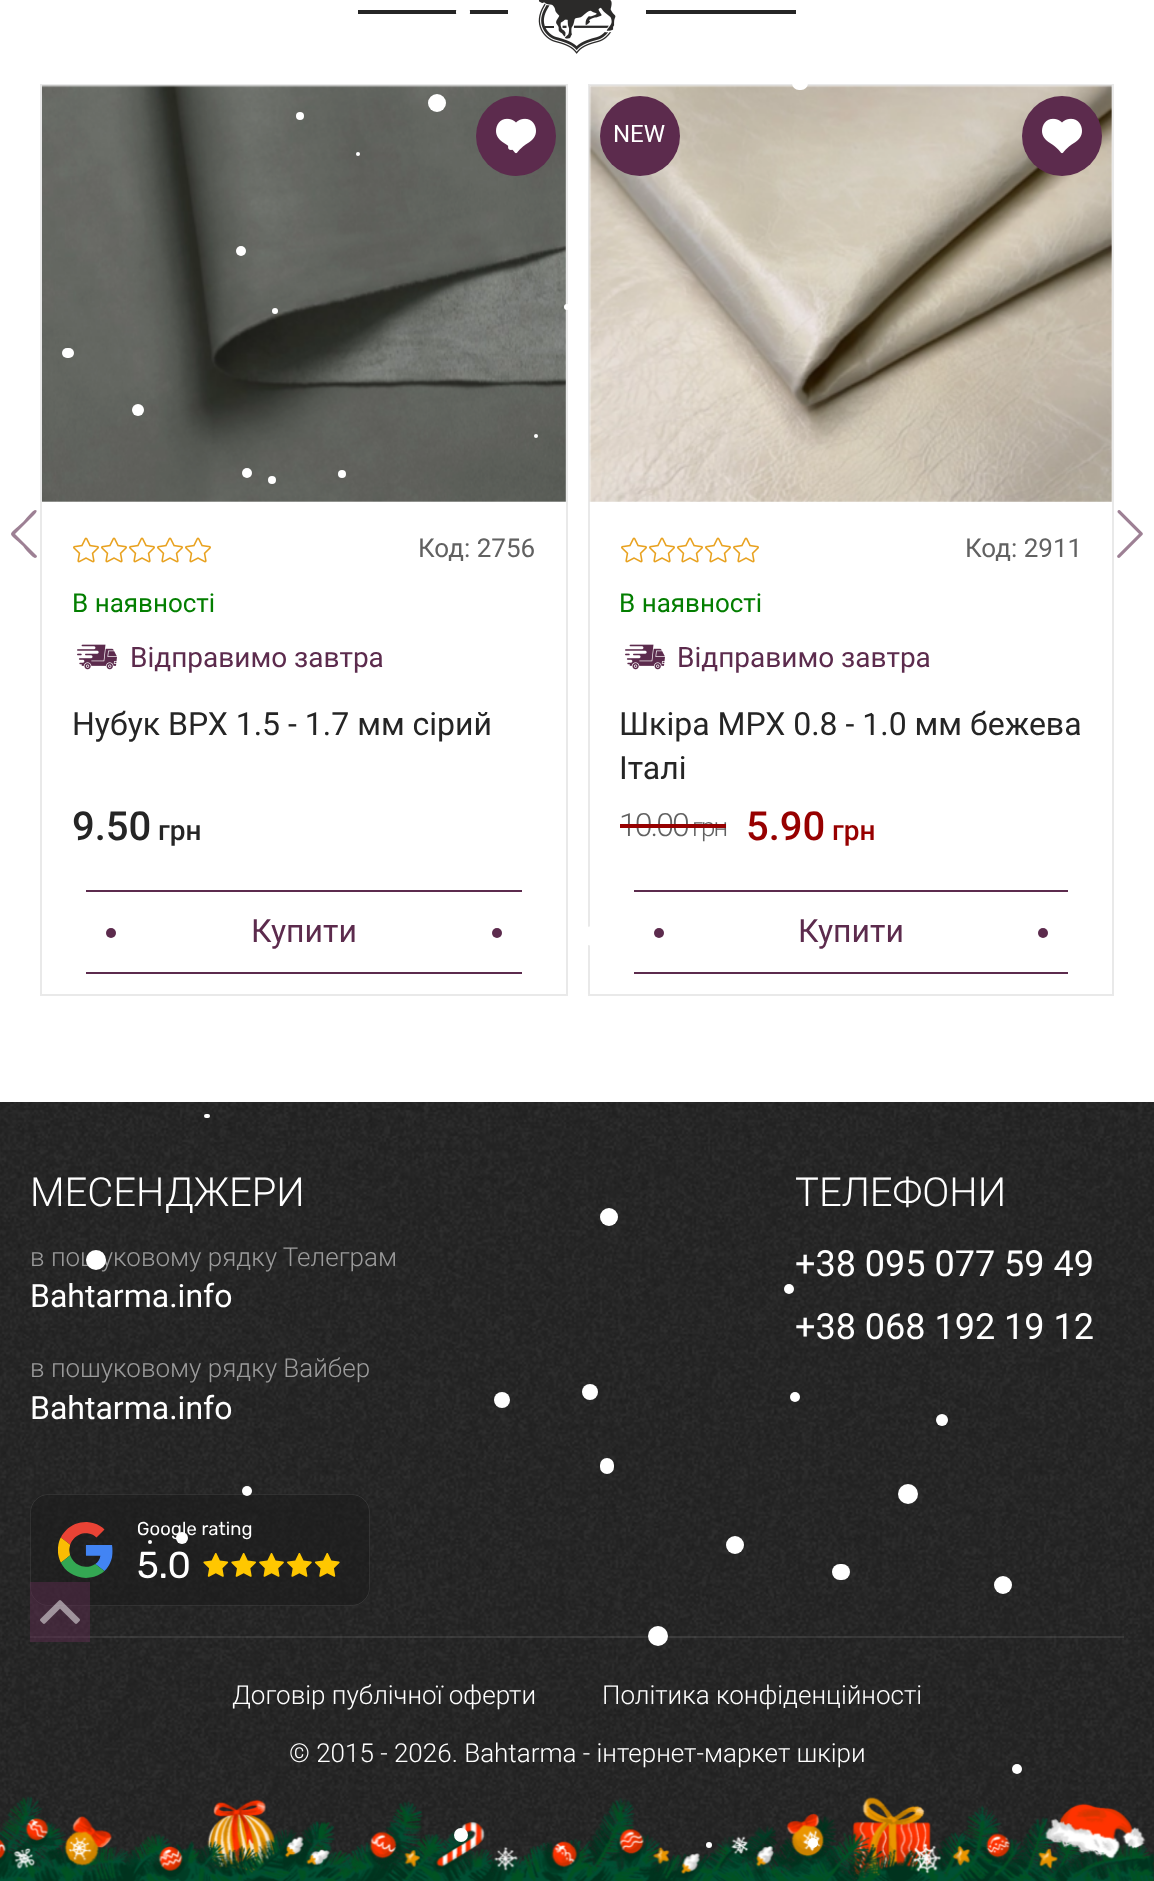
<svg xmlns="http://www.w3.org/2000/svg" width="1154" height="1881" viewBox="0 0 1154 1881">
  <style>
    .t1 { font: 26px Roboto; fill: #616161; }
    .t2 { font: 26px Roboto; fill: #037e00; }
    .t3 { font: 28px Roboto; fill: #5c2b4d; }
    .t4 { font: 32px Roboto; fill: #252525; }
    .t5 { font: 500 40px Roboto; fill: #252525; }
    .t6 { font: 500 28px Roboto; fill: #252525; }
    .t7 { font: 32px Roboto; fill: #5c2b4d; }
    .t8 { font: 24px Roboto; fill: #fff; }
    .t9 { font: 300 32px Roboto; letter-spacing: -2px; fill: #616161; }
    .t10 { font: 300 26px Roboto; letter-spacing: -2px; fill: #616161; }
    .t11 { font: 500 40px Roboto; fill: #970000; }
    .t12 { font: 500 28px Roboto; fill: #970000; }
    .t13 { font: 300 40px Roboto; fill: #fff; }
    .t14 { font: 300 26px Roboto; fill: #9c9c9c; }
    .t15 { font: 32px Roboto; fill: #fff; }
    .t16 { font: 36px Roboto; fill: #fff; }
    .t17 { font: 300 26px Roboto; fill: #fff; }
  </style>
  <rect width="100%" height="100%" fill="#fff"/>
  <rect x="358" y="10" width="150" height="4" fill="#252525"/>
  <rect x="456" y="4" width="14" height="16" rx="7" fill="#fff"/>
  <rect x="589" y="85" width="524" height="910" fill="none" stroke="#e9e9e9" stroke-width="2"/>
  <image x="589" y="85" width="523" height="417" href="images/6.png"/>
  <rect x="792" y="76" width="16" height="14" rx="7" fill="#fff"/>
  <rect x="41" y="85" width="526" height="910" fill="none" stroke="#e9e9e9" stroke-width="2"/>
  <image x="42" y="85" width="524" height="417" href="images/2.png"/>
  <circle cx="437" cy="103" r="9" fill="#fff"/>
  <circle cx="300" cy="116" r="4" fill="#fff"/>
  <image x="538" y="0" width="78" height="54" href="images/1.png"/>
  <rect x="646" y="10" width="150" height="4" fill="#252525"/>
  <circle cx="516" cy="136" r="40" fill="#5c2b4d"/>
  <image x="496" y="118" width="40" height="36" href="images/3.png"/>
  <image x="73" y="537" width="26" height="26" href="images/4.png"/>
  <image x="101" y="537" width="26" height="26" href="images/4.png"/>
  <image x="129" y="537" width="26" height="26" href="images/4.png"/>
  <image x="157" y="537" width="26" height="26" href="images/4.png"/>
  <image x="185" y="537" width="26" height="26" href="images/4.png"/>
  <text x="418" y="557" class="t1">Код: 2756</text>
  <text x="72" y="612" class="t2">В наявності</text>
  <image x="77" y="644" width="40" height="26" href="images/5.png"/>
  <text x="130" y="667" class="t3">Відправимо завтра</text>
  <text x="72" y="735" class="t4">Нубук ВРХ 1.5 - 1.7 мм сірий</text>
  <text x="72" y="840" class="t5">9.50</text>
  <text x="158" y="840" class="t6">грн</text>
  <rect x="86" y="890" width="436" height="2" fill="#5c2b4d"/>
  <rect x="86" y="972" width="436" height="2" fill="#5c2b4d"/>
  <circle cx="111" cy="933" r="5" fill="#5c2b4d"/>
  <text x="251" y="942" class="t7">Купити</text>
  <circle cx="497" cy="933" r="5" fill="#5c2b4d"/>
  <circle cx="640" cy="136" r="40" fill="#5c2b4d"/>
  <text x="613" y="142" class="t8">NEW</text>
  <circle cx="1062" cy="136" r="40" fill="#5c2b4d"/>
  <image x="1042" y="118" width="40" height="36" href="images/3.png"/>
  <image x="621" y="537" width="26" height="26" href="images/4.png"/>
  <image x="649" y="537" width="26" height="26" href="images/4.png"/>
  <image x="677" y="537" width="26" height="26" href="images/4.png"/>
  <image x="705" y="537" width="26" height="26" href="images/4.png"/>
  <image x="733" y="537" width="26" height="26" href="images/4.png"/>
  <text x="965" y="557" class="t1">Код: 2911</text>
  <text x="619" y="612" class="t2">В наявності</text>
  <image x="625" y="644" width="40" height="26" href="images/5.png"/>
  <text x="677" y="667" class="t3">Відправимо завтра</text>
  <text x="619" y="735" class="t4">Шкіра МРХ 0.8 - 1.0 мм бежева</text>
  <text x="619" y="779" class="t4">Італі</text>
  <text x="619" y="836" class="t9">10.00</text>
  <text x="692" y="836" class="t10">грн</text>
  <rect x="620" y="824" width="106" height="4" fill="#970000"/>
  <text x="746" y="840" class="t11">5.90</text>
  <text x="832" y="840" class="t12">грн</text>
  <rect x="634" y="890" width="434" height="2" fill="#5c2b4d"/>
  <rect x="634" y="972" width="434" height="2" fill="#5c2b4d"/>
  <circle cx="659" cy="933" r="5" fill="#5c2b4d"/>
  <text x="798" y="942" class="t7">Купити</text>
  <circle cx="1043" cy="933" r="5" fill="#5c2b4d"/>
  <path d="M35 510C39 510 35 514 33 516L15 534L37 556C37 557 36 558 35 558C33 558 24 548 23 546C7 531 7 537 23 522C25 520 33 510 35 510Z" fill="#9d8094"/>
  <image x="1117" y="510" width="26" height="48" href="images/7.png"/>
  <circle cx="511" cy="147" r="3" fill="#fff"/>
  <circle cx="358" cy="154" r="2" fill="#fff"/>
  <circle cx="241" cy="251" r="5" fill="#fff"/>
  <circle cx="567" cy="307" r="3" fill="#fff"/>
  <circle cx="275" cy="311" r="3" fill="#fff"/>
  <rect x="62" y="348" width="12" height="10" rx="5" fill="#fff"/>
  <circle cx="138" cy="410" r="6" fill="#fff"/>
  <circle cx="536" cy="436" r="2" fill="#fff"/>
  <circle cx="247" cy="473" r="5" fill="#fff"/>
  <circle cx="342" cy="474" r="4" fill="#fff"/>
  <circle cx="272" cy="480" r="4" fill="#fff"/>
  <circle cx="90" cy="530" r="8" fill="#fff"/>
  <circle cx="878" cy="708" r="8" fill="#fff"/>
  <circle cx="592" cy="936" r="10" fill="#fff"/>
  <image x="0" y="1102" width="1154" height="779" href="images/8.png"/>
  <rect x="204" y="1114" width="6" height="4" rx="2" fill="#fff"/>
  <text x="30" y="1206" class="t13">МЕСЕНДЖЕРИ</text>
  <text x="30" y="1266" class="t14">в пошуковому рядку Телеграм</text>
  <text x="30" y="1307" class="t15">Bahtarma.info</text>
  <text x="30" y="1377" class="t14">в пошуковому рядку Вайбер</text>
  <text x="30" y="1419" class="t15">Bahtarma.info</text>
  <image x="30" y="1494" width="340" height="112" href="images/9.png"/>
  <text x="795" y="1206" class="t13">ТЕЛЕФОНИ</text>
  <text x="795" y="1276" class="t16">+38 095 077 59 49</text>
  <text x="795" y="1339" class="t16">+38 068 192 19 12</text>
  <rect x="30" y="1636" width="1094" height="2" fill="#e9e9e91a"/>
  <text x="232" y="1704" class="t17">Договір публічної оферти</text>
  <text x="602" y="1704" class="t17">Політика конфіденційності</text>
  <text x="289" y="1762" class="t17">© 2015 - 2026. Bahtarma - інтернет-маркет шкіри</text>
  <rect x="30" y="1582" width="60" height="60" fill="#5c2b4d80"/>
  <image x="40" y="1600" width="40" height="24" href="images/10.png"/>
  <image x="0" y="1796" width="1154" height="85" href="images/11.png"/>
  <circle cx="609" cy="1217" r="9" fill="#fff"/>
  <circle cx="96" cy="1260" r="10" fill="#fff"/>
  <circle cx="789" cy="1289" r="5" fill="#fff"/>
  <circle cx="502" cy="1400" r="8" fill="#fff"/>
  <circle cx="590" cy="1392" r="8" fill="#fff"/>
  <circle cx="795" cy="1397" r="5" fill="#fff"/>
  <circle cx="942" cy="1420" r="6" fill="#fff"/>
  <rect x="600" y="1458" width="14" height="16" rx="7" fill="#fff"/>
  <circle cx="247" cy="1491" r="5" fill="#fff"/>
  <circle cx="908" cy="1494" r="10" fill="#fff"/>
  <circle cx="150" cy="1542" r="2" fill="#fff"/>
  <circle cx="182" cy="1538" r="6" fill="#fff"/>
  <circle cx="735" cy="1545" r="9" fill="#fff"/>
  <rect x="832" y="1564" width="18" height="16" rx="8" fill="#fff"/>
  <circle cx="1003" cy="1585" r="9" fill="#fff"/>
  <circle cx="658" cy="1636" r="10" fill="#fff"/>
  <circle cx="1017" cy="1769" r="5" fill="#fff"/>
  <circle cx="461" cy="1835" r="7" fill="#fff"/>
  <circle cx="709" cy="1845" r="3" fill="#fff"/>
  <circle cx="813" cy="1843" r="5" fill="#fff"/>
</svg>
